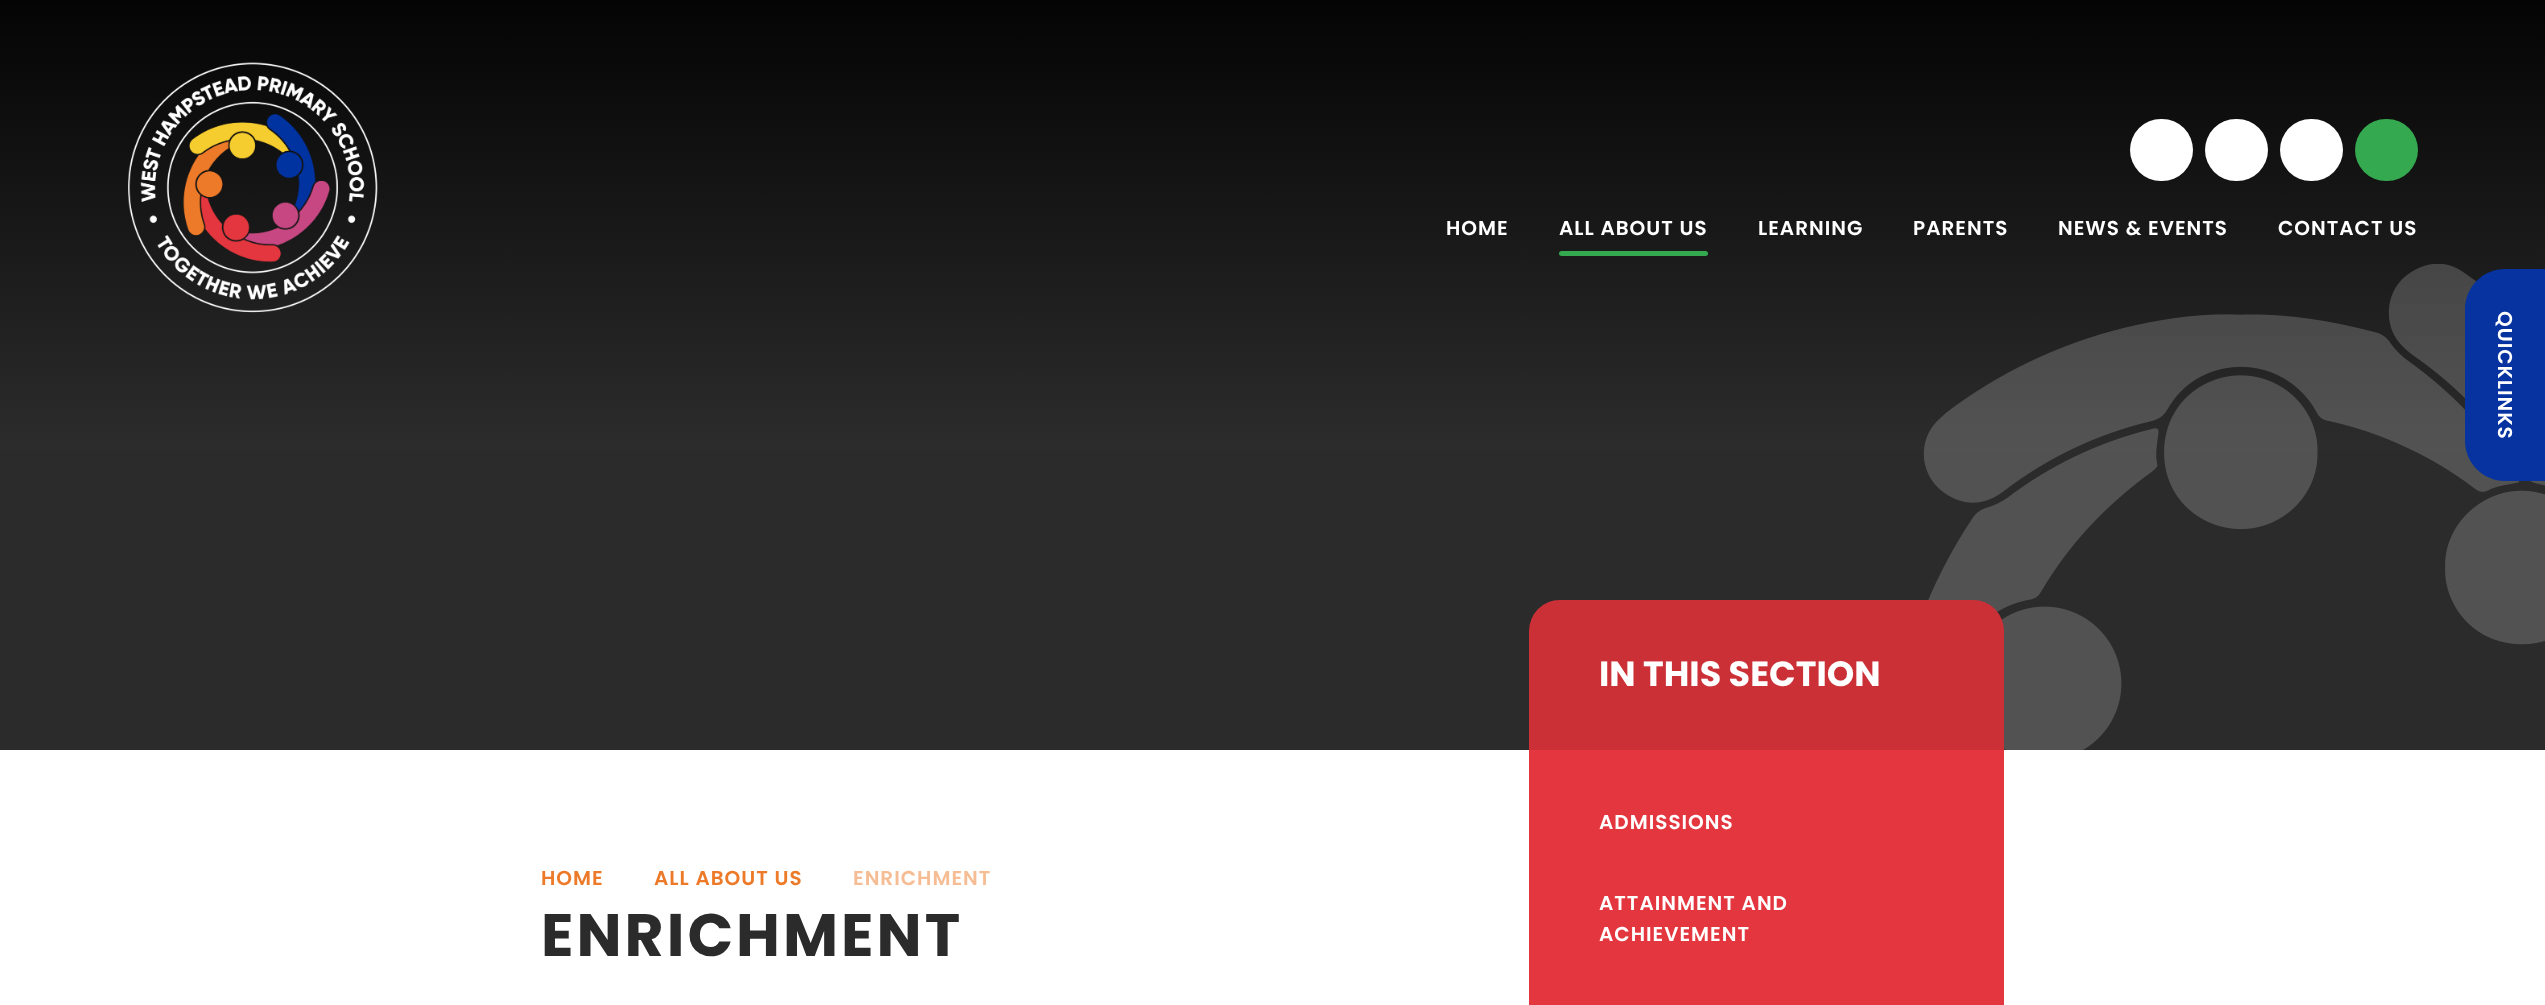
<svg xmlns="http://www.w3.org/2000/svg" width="2545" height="1005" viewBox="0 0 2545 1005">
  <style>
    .t1 { font: 600 20px Poppins; letter-spacing: 1px; fill: #fff; }
    .t2 { font: 600 20px Poppins; letter-spacing: 1px; fill: #ed7a29; }
    .t3 { font: 600 20px Poppins; letter-spacing: 1px; fill: #f6bd94; }
    .t4 { font: bold 60px Poppins; letter-spacing: 3px; fill: #2b2b2b; }
    .t5 { font: bold 35px Poppins; fill: #fff; }
  </style>
  <defs>
    <linearGradient id="g1" gradientUnits="userSpaceOnUse" x1="1273" y1="0" x2="1273" y2="450"><stop offset="0" stop-color="#040404"/><stop offset="1" stop-color="#2c2c2c"/></linearGradient>
  </defs>
  <rect width="100%" height="100%" fill="#fff"/>
  <rect x="0" y="450" width="2545" height="300" fill="#2b2b2b"/>
  <rect x="0" y="0" width="2545" height="450" fill="url(#g1)"/>
  <image x="1923" y="264" width="622" height="486" href="images/1.png"/>
  <image x="128" y="62" width="250" height="251" href="images/2.png"/>
  <rect x="2130" y="119" width="63" height="62" rx="31" fill="#fff"/>
  <rect x="2205" y="119" width="63" height="62" rx="31" fill="#fff"/>
  <rect x="2280" y="119" width="63" height="62" rx="31" fill="#fff"/>
  <rect x="2355" y="119" width="63" height="62" rx="31" fill="#34a950"/>
  <text x="1446" y="235" class="t1">HOME</text>
  <text x="1559" y="235" class="t1">ALL ABOUT US</text>
  <rect x="1559" y="251" width="149" height="5" rx="2.5" fill="#34a950"/>
  <text x="1758" y="235" class="t1">LEARNING</text>
  <text x="1913" y="235" class="t1">PARENTS</text>
  <text x="2058" y="235" class="t1">NEWS &amp; EVENTS</text>
  <text x="2278" y="235" class="t1">CONTACT US</text>
  <path d="M2505 269H2545V481H2505C2483 481 2465 463 2465 441V309C2465 287 2483 269 2505 269Z" fill="#0633a0"/>
  <text x="2498" y="311" transform="rotate(90 2498 311)" class="t1">QUICKLINKS</text>
  <text x="541" y="885" class="t2">HOME</text>
  <text x="654" y="885" class="t2">ALL ABOUT US</text>
  <text x="853" y="885" class="t3">ENRICHMENT</text>
  <text x="541" y="956" class="t4">ENRICHMENT</text>
  <rect x="1529" y="600" width="475" height="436" rx="31" fill="#e4363e"/>
  <path d="M1560 600H1973C1990 600 2004 614 2004 631V750H1529V631C1529 614 1543 600 1560 600Z" fill="#0000001a"/>
  <text x="1599" y="686" class="t5">IN THIS SECTION</text>
  <text x="1599" y="829" class="t1">ADMISSIONS</text>
  <text x="1599" y="910" class="t1">ATTAINMENT AND</text>
  <text x="1599" y="941" class="t1">ACHIEVEMENT</text>
</svg>
